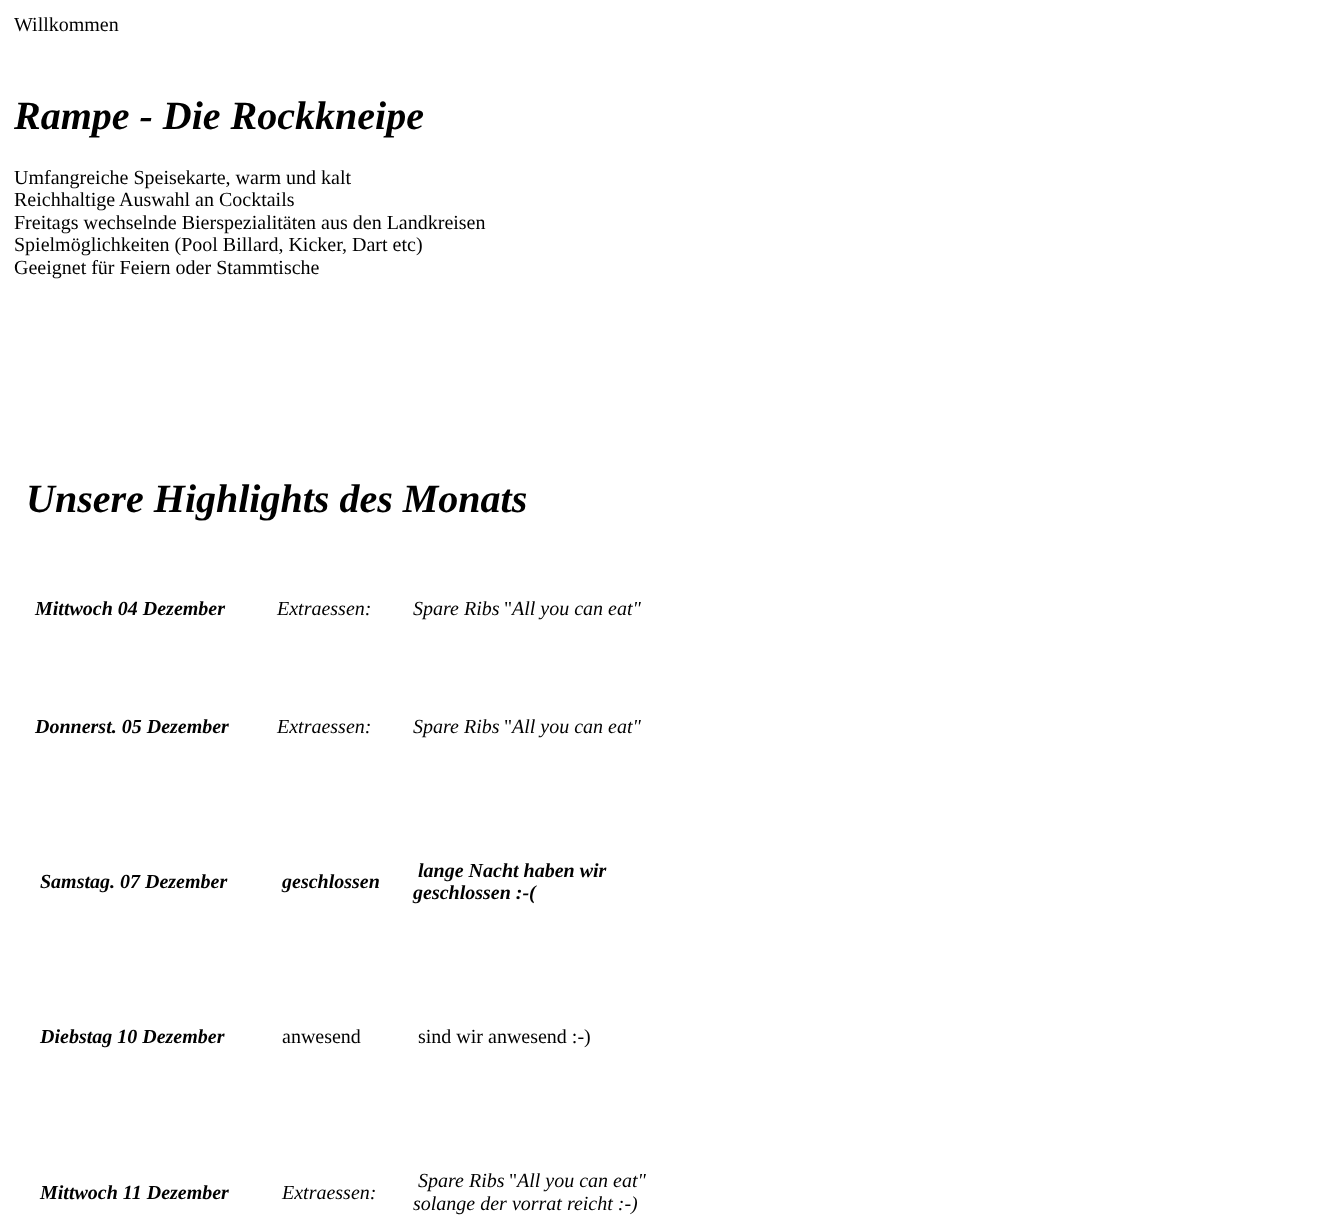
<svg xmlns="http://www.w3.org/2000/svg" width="1330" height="1223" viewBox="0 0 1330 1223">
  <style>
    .t1 { font: 20px Liberation Serif; fill: #000; }
    .t2 { font: italic bold 40px Liberation Serif; fill: #000; }
    .t3 { font: italic bold 20px Liberation Serif; fill: #000; }
    .t4 { font: italic 20px Liberation Serif; fill: #000; }
  </style>
  <rect width="100%" height="100%" fill="#fff"/>
  <text x="14" y="31" class="t1">Willkommen</text>
  <text x="14" y="129" class="t2">Rampe - Die Rockkneipe</text>
  <text x="14" y="184" class="t1">Umfangreiche Speisekarte, warm und kalt</text>
  <text x="14" y="206" class="t1">Reichhaltige Auswahl an Cocktails</text>
  <text x="14" y="229" class="t1">Freitags wechselnde Bierspezialitäten aus den Landkreisen</text>
  <text x="14" y="251" class="t1">Spielmöglichkeiten (Pool Billard, Kicker, Dart etc)</text>
  <text x="14" y="274" class="t1">Geeignet für Feiern oder Stammtische</text>
  <text x="26" y="512" class="t2">Unsere Highlights des Monats</text>
  <text x="35" y="615" class="t3">Mittwoch 04 Dezember</text>
  <text x="277" y="615" class="t4">Extraessen:</text>
  <text x="413" y="615" class="t4">Spare Ribs</text>
  <text x="504" y="615" class="t1">"</text>
  <text x="512" y="615" class="t4">All you can eat"</text>
  <text x="35" y="733" class="t3">Donnerst. 05 Dezember</text>
  <text x="277" y="733" class="t4">Extraessen:</text>
  <text x="413" y="733" class="t4">Spare Ribs</text>
  <text x="504" y="733" class="t1">"</text>
  <text x="512" y="733" class="t4">All you can eat"</text>
  <text x="40" y="888" class="t3">Samstag. 07 Dezember</text>
  <text x="282" y="888" class="t3">geschlossen</text>
  <text x="418" y="877" class="t3">lange Nacht haben wir</text>
  <text x="413" y="899" class="t3">geschlossen :-(</text>
  <text x="40" y="1043" class="t3">Diebstag 10 Dezember</text>
  <text x="282" y="1043" class="t1">anwesend</text>
  <text x="418" y="1043" class="t1">sind wir anwesend :-)</text>
  <text x="40" y="1199" class="t3">Mittwoch 11 Dezember</text>
  <text x="282" y="1199" class="t4">Extraessen:</text>
  <text x="418" y="1187" class="t4">Spare Ribs</text>
  <text x="509" y="1187" class="t1">"</text>
  <text x="517" y="1187" class="t4">All you can eat"</text>
  <text x="413" y="1210" class="t4">solange der vorrat reicht :-)</text>
</svg>
